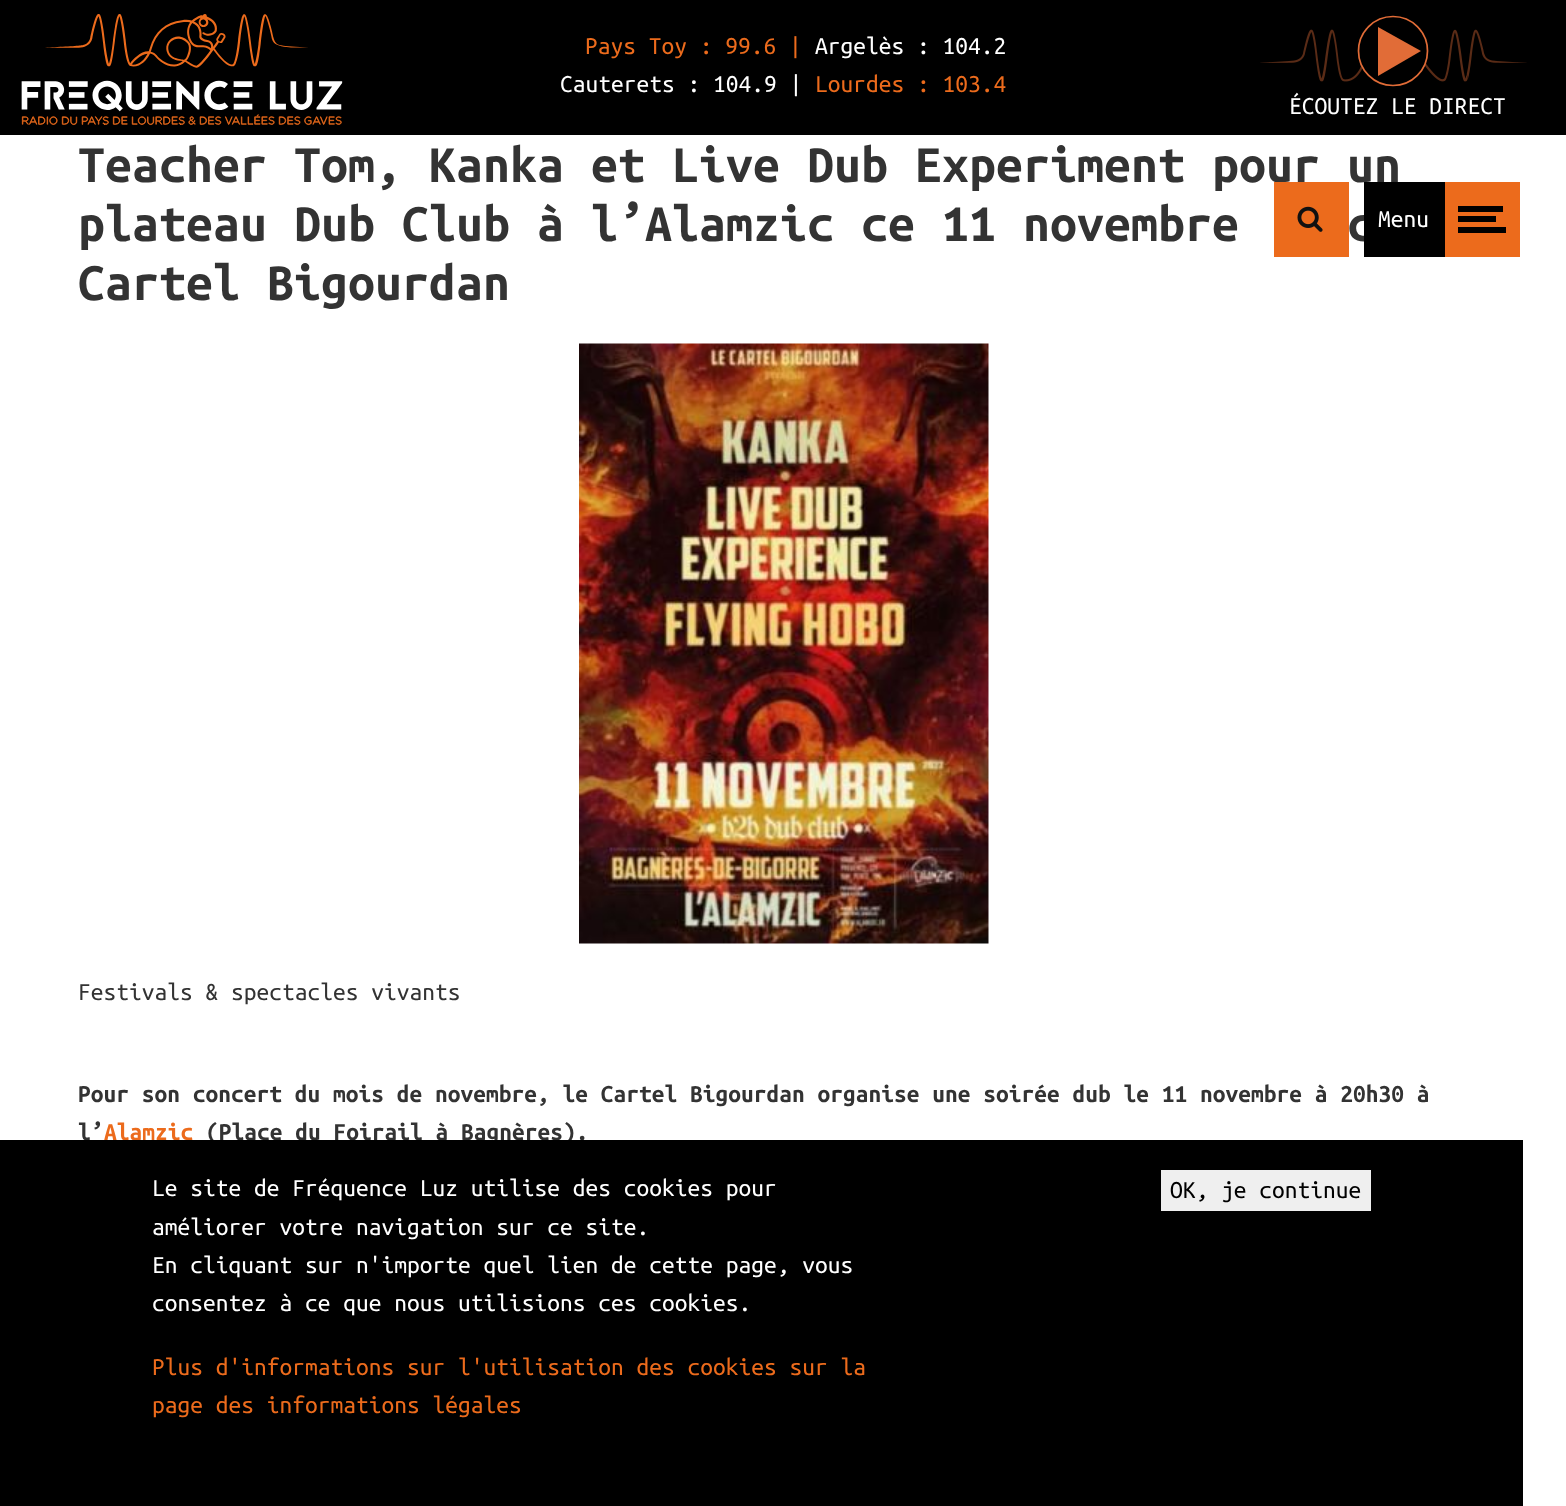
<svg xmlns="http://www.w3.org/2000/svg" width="1566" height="1506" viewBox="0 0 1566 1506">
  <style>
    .t1 { font: 25.5px Ubuntu Mono; fill: #ec6b1c; }
    .t2 { font: 25.5px Ubuntu Mono; fill: #fff; }
    .t3 { font: bold 54px Ubuntu Mono; fill: #333; }
    .t4 { font: 25.5px Ubuntu Mono; fill: #333; }
    .t5 { font: bold 25.5px Ubuntu Mono; fill: #333; }
    .t6 { font: bold 25.5px Ubuntu Mono; fill: #ec6b1c; }
    .t7 { font: 25.5px Ubuntu Mono; fill: #000; }
  </style>
  <rect width="100%" height="100%" fill="#fff"/>
  <rect x="0" y="0" width="1566" height="135" fill="#000"/>
  <image x="21" y="14" width="322" height="112" href="images/1.png"/>
  <text x="585" y="54" class="t1">Pays Toy : 99.6 |</text>
  <text x="815" y="54" class="t2">Argelès : 104.2</text>
  <text x="560" y="92" class="t2">Cauterets : 104.9 |</text>
  <text x="815" y="92" class="t1">Lourdes : 103.4</text>
  <circle cx="1393" cy="51" r="34.5" fill="none" stroke="#e16c37" stroke-width="1.7"/>
  <path d="M1378 76L1421 51L1378 27Z" fill="#e16c37"/>
  <image x="1260" y="29" width="267" height="53" href="images/2.png"/>
  <text x="1289" y="114" class="t2">ÉCOUTEZ LE DIRECT</text>
  <text x="78" y="182" class="t3">Teacher Tom, Kanka et Live Dub Experiment pour un</text>
  <text x="78" y="241" class="t3">plateau Dub Club à l’Alamzic ce 11 novembre</text>
  <text x="1347" y="241" class="t3">c</text>
  <text x="78" y="300" class="t3">Cartel Bigourdan</text>
  <image x="579" y="343" width="410" height="601" href="images/3.png"/>
  <text x="78" y="1000" class="t4">Festivals &amp; spectacles vivants</text>
  <text x="78" y="1102" class="t5">Pour son concert du mois de novembre, le Cartel Bigourdan organise une soirée dub le 11 novembre à 20h30 à</text>
  <text x="78" y="1140" class="t5">l’</text>
  <text x="104" y="1140" class="t6">Alamzic</text>
  <text x="206" y="1140" class="t5">(Place du Foirail à Bagnères).</text>
  <rect x="1274" y="182" width="75" height="75" fill="#ec6b1c"/>
  <image x="1297" y="206" width="26" height="26" href="images/4.png"/>
  <rect x="1364" y="182" width="81" height="75" fill="#000"/>
  <text x="1378" y="227" class="t2">Menu</text>
  <rect x="1445" y="182" width="75" height="75" fill="#ec6b1c"/>
  <rect x="1458" y="206" width="45" height="6" fill="#000"/>
  <rect x="1458" y="216" width="38" height="6" fill="#000"/>
  <rect x="1458" y="227" width="48" height="6" fill="#000"/>
  <rect x="0" y="1140" width="1523" height="366" fill="#000"/>
  <text x="152" y="1196" class="t2">Le site de Fréquence Luz utilise des cookies pour</text>
  <text x="152" y="1235" class="t2">améliorer votre navigation sur ce site.</text>
  <text x="152" y="1273" class="t2">En cliquant sur n'importe quel lien de cette page, vous</text>
  <text x="152" y="1311" class="t2">consentez à ce que nous utilisions ces cookies.</text>
  <text x="152" y="1375" class="t1">Plus d'informations sur l'utilisation des cookies sur la</text>
  <text x="152" y="1413" class="t1">page des informations légales</text>
  <rect x="1161" y="1170" width="210" height="41" fill="#efefef"/>
  <text x="1170" y="1198" class="t7">OK, je continue</text>
</svg>
